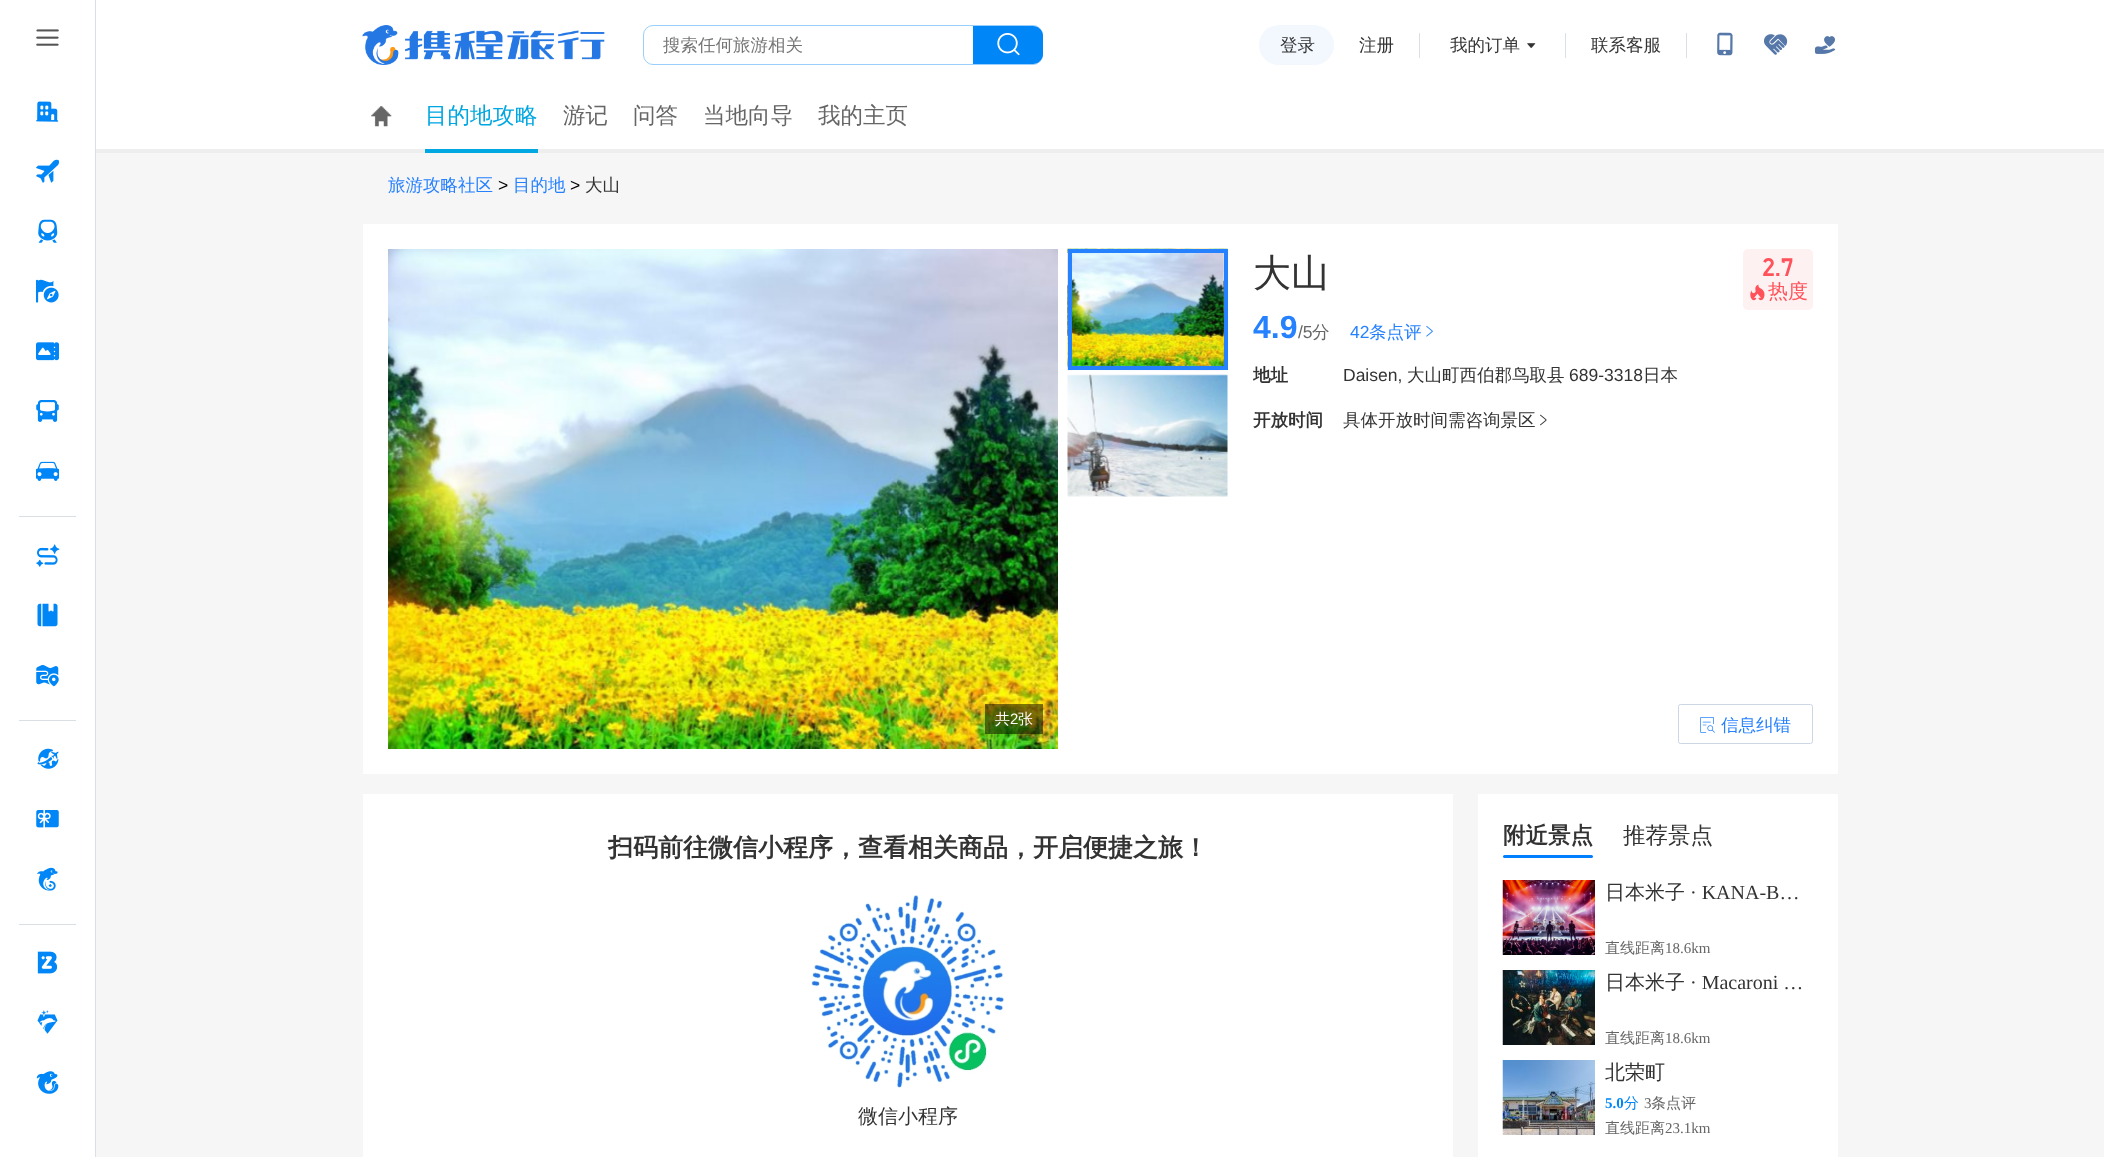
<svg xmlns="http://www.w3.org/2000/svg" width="2104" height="1157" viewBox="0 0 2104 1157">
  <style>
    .t1 { font: 500 17.5px WenQuanYi Zen Hei; fill: #757575; }
    .t2 { font: 500 17.5px WenQuanYi Zen Hei; fill: #333; }
    .t3 { font: 500 22.5px WenQuanYi Zen Hei; fill: #00a7e0; }
    .t4 { font: 500 22.5px WenQuanYi Zen Hei; fill: #666; }
    .t5 { font: 500 17.5px WenQuanYi Zen Hei; fill: #2681ff; }
    .t6 { font: 17.5px Liberation Sans; fill: #000; }
    .t7 { font: 500 38px WenQuanYi Zen Hei; fill: #333; }
    .t8 { font: bold 25px '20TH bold'; fill: #ff525a; }
    .t9 { font: 500 20px WenQuanYi Zen Hei; fill: #ff525a; }
    .t10 { font: bold 32px Liberation Sans; fill: #2681ff; }
    .t11 { font: 17.5px Liberation Sans; fill: #666; }
    .t12 { font: 500 17.5px WenQuanYi Zen Hei; fill: #666; }
    .t13 { font: 17.5px Liberation Sans; fill: #2681ff; }
    .t14 { font: bold 17.5px WenQuanYi Zen Hei; fill: #333; }
    .t15 { font: 17.5px Liberation Sans; fill: #333; }
    .t16 { font: 500 15px WenQuanYi Zen Hei; fill: #fff; }
    .t17 { font: 15px Liberation Sans; fill: #fff; }
    .t18 { font: bold 25px WenQuanYi Zen Hei; fill: #333; }
    .t19 { font: 500 20px WenQuanYi Zen Hei; fill: #333; }
    .t20 { font: bold 22.5px WenQuanYi Zen Hei; fill: #333; }
    .t21 { font: 500 22.5px WenQuanYi Zen Hei; fill: #333; }
    .t22 { font: 20px Liberation Serif; fill: #333; }
    .t23 { font: 500 15px WenQuanYi Zen Hei; fill: #666; }
    .t24 { font: 15px Liberation Serif; fill: #666; }
    .t25 { font: bold 15px Liberation Serif; fill: #0086f6; }
    .t26 { font: 500 15px WenQuanYi Zen Hei; fill: #0086f6; }
  </style>
  <defs>
    <clipPath id="clip1"><rect x="1253" y="249" width="560" height="500"/></clipPath>
  </defs>
  <rect width="100%" height="100%" fill="#fff"/>
  <rect x="95" y="149" width="2009" height="4" fill="#eee"/>
  <rect x="95" y="0" width="1" height="1157" fill="#dadfe6"/>
  <image x="36" y="29" width="23" height="17" href="images/1.png"/>
  <image x="36" y="101" width="23" height="21" href="images/2.png"/>
  <image x="36" y="159" width="23" height="24" href="images/3.png"/>
  <image x="38" y="219" width="20" height="24" href="images/4.png"/>
  <image x="36" y="279" width="23" height="24" href="images/5.png"/>
  <image x="36" y="342" width="23" height="19" href="images/6.png"/>
  <image x="36" y="400" width="23" height="22" href="images/7.png"/>
  <image x="36" y="461" width="23" height="20" href="images/8.png"/>
  <rect x="19" y="516" width="57" height="1" fill="#dadfe6"/>
  <image x="36" y="544" width="24" height="23" href="images/9.png"/>
  <image x="37" y="603" width="21" height="24" href="images/10.png"/>
  <image x="36" y="665" width="23" height="22" href="images/11.png"/>
  <rect x="19" y="720" width="57" height="1" fill="#dadfe6"/>
  <image x="37" y="748" width="22" height="21" href="images/12.png"/>
  <image x="36" y="810" width="23" height="18" href="images/13.png"/>
  <image x="37" y="867" width="21" height="24" href="images/14.png"/>
  <rect x="19" y="924" width="57" height="1" fill="#dadfe6"/>
  <image x="37" y="951" width="21" height="23" href="images/15.png"/>
  <image x="37" y="1010" width="21" height="24" href="images/16.png"/>
  <image x="36" y="1071" width="23" height="23" href="images/17.png"/>
  <image x="362" y="25" width="243" height="40" href="images/18.png"/>
  <rect x="643.5" y="25.5" width="399" height="39" rx="9.5" fill="none" stroke="#9acefb"/>
  <text x="663" y="51" class="t1">搜索任何旅游相关</text>
  <path d="M973 26H1033C1038.5 26 1043 30.5 1043 36V54C1043 59.5 1038.5 64 1033 64H973Z" fill="#0086f6"/>
  <image x="997" y="33" width="23" height="23" href="images/19.png"/>
  <rect x="1259" y="25" width="75" height="40" rx="20" fill="#f2f8fe"/>
  <text x="1280" y="51" class="t2">登录</text>
  <text x="1359" y="51" class="t2">注册</text>
  <rect x="1419" y="33" width="1" height="25" fill="#dadfe6"/>
  <text x="1450" y="51" class="t2">我的订单</text>
  <image x="1527" y="43" width="9" height="5" href="images/20.png"/>
  <rect x="1565" y="33" width="1" height="25" fill="#dadfe6"/>
  <text x="1591" y="51" class="t2">联系客服</text>
  <rect x="1686" y="33" width="1" height="25" fill="#dadfe6"/>
  <image x="1717" y="32" width="16" height="24" href="images/21.png"/>
  <image x="1764" y="34" width="24" height="21" href="images/22.png"/>
  <image x="1814" y="36" width="22" height="18" href="images/23.png"/>
  <image x="371" y="106" width="21" height="21" href="images/24.png"/>
  <rect x="425" y="149" width="113" height="4" fill="#01a7e1"/>
  <text x="425" y="123" class="t3">目的地攻略</text>
  <text x="563" y="123" class="t4">游记</text>
  <text x="633" y="123" class="t4">问答</text>
  <text x="703" y="123" class="t4">当地向导</text>
  <text x="818" y="123" class="t4">我的主页</text>
  <rect x="96" y="153" width="2008" height="1004" fill="#f6f6f6"/>
  <text x="388" y="191" class="t5">旅游攻略社区</text>
  <text x="498" y="191" class="t6">&gt;</text>
  <text x="513" y="191" class="t5">目的地</text>
  <text x="570" y="191" class="t6">&gt;</text>
  <text x="585" y="191" class="t2">大山</text>
  <rect x="363" y="224" width="1475" height="550" fill="#fff"/>
  <text x="1253" y="286" class="t7">大山</text>
  <rect x="1743" y="249" width="70" height="61" rx="5" fill="#fdf1f2"/>
  <text x="1762" y="276" class="t8">2.7</text>
  <image x="1750" y="284" width="15" height="17" href="images/25.png"/>
  <text x="1768" y="298" class="t9">热度</text>
  <text x="1253" y="338" class="t10">4.9</text>
  <text x="1298" y="338" class="t11">/5</text>
  <text x="1312" y="338" class="t12">分</text>
  <text x="1350" y="338" class="t13">42</text>
  <text x="1369" y="338" class="t5">条点评</text>
  <image x="1426" y="326" width="7" height="11" href="images/26.png"/>
  <g clip-path="url(#clip1)">
    <text x="1253" y="381" class="t14">地址</text>
  </g>
  <text x="1343" y="381" class="t15">Daisen,</text>
  <text x="1407" y="381" class="t2">大山町西伯郡鸟取县</text>
  <text x="1569" y="381" class="t15">689-3318</text>
  <text x="1643" y="381" class="t2">日本</text>
  <text x="1253" y="426" class="t14">开放时间</text>
  <text x="1343" y="426" class="t2">具体开放时间需咨询景区</text>
  <image x="1540" y="414" width="7" height="12" href="images/27.png"/>
  <image x="1067" y="248" width="161" height="123" href="images/28.png"/>
  <rect x="1070" y="251" width="156" height="117" fill="none" stroke="#2681ff" stroke-width="4"/>
  <image x="1067" y="374" width="161" height="123" href="images/29.png"/>
  <image x="388" y="249" width="670" height="500" href="images/30.png"/>
  <rect x="985" y="704" width="58" height="30" fill="#00000080"/>
  <text x="995" y="724" class="t16">共</text>
  <text x="1010" y="724" class="t17">2</text>
  <text x="1018" y="724" class="t16">张</text>
  <rect x="1678.5" y="704.5" width="134" height="39" rx="2" fill="none" stroke="#ccd6e5"/>
  <image x="1700" y="717" width="15" height="16" href="images/31.png"/>
  <text x="1721" y="731" class="t5">信息纠错</text>
  <rect x="363" y="794" width="1090" height="363" fill="#fff"/>
  <text x="608" y="856" class="t18">扫码前往微信小程序，查看相关商品，开启便捷之旅！</text>
  <image x="811" y="895" width="194" height="193" href="images/32.png"/>
  <text x="858" y="1123" class="t19">微信小程序</text>
  <rect x="1478" y="794" width="360" height="363" fill="#fff"/>
  <text x="1503" y="843" class="t20">附近景点</text>
  <rect x="1503" y="855" width="90" height="3" rx="1.5" fill="#0080ff"/>
  <text x="1623" y="843" class="t21">推荐景点</text>
  <image x="1502" y="880" width="93" height="75" href="images/33.png"/>
  <text x="1605" y="899" class="t19">日本米子</text>
  <text x="1690" y="899" class="t22">· KANA-B…</text>
  <text x="1605" y="953" class="t23">直线距离</text>
  <text x="1665" y="953" class="t24">18.6km</text>
  <image x="1502" y="970" width="93" height="75" href="images/34.png"/>
  <text x="1605" y="989" class="t19">日本米子</text>
  <text x="1690" y="989" class="t22">· Macaroni …</text>
  <text x="1605" y="1043" class="t23">直线距离</text>
  <text x="1665" y="1043" class="t24">18.6km</text>
  <image x="1502" y="1060" width="93" height="75" href="images/35.png"/>
  <text x="1605" y="1079" class="t19">北荣町</text>
  <text x="1605" y="1108" class="t25">5.0</text>
  <text x="1624" y="1108" class="t26">分</text>
  <text x="1644" y="1108" class="t24">3</text>
  <text x="1651" y="1108" class="t23">条点评</text>
  <text x="1605" y="1133" class="t23">直线距离</text>
  <text x="1665" y="1133" class="t24">23.1km</text>
</svg>
